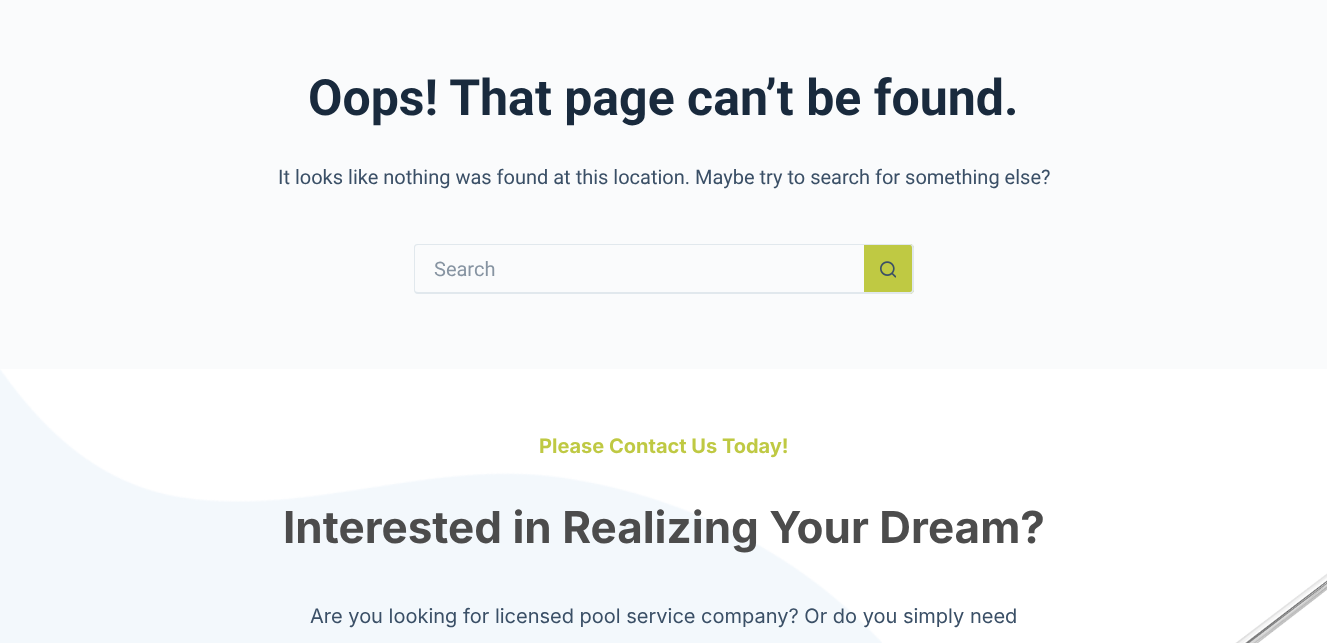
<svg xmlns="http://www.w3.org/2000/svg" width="1327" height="643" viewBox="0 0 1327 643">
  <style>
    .t1 { font: bold 50px Roboto; fill: #192a3d; }
    .t2 { font: 20px Roboto; fill: #3a4f66; }
    .t3 { font: 20px Roboto; fill: #8794a2; }
    .t4 { font: bold 20px Inter; fill: #bfc943; }
    .t5 { font: bold 44px Inter; fill: #4c4c4c; }
    .t6 { font: 20px Inter; fill: #3a4f66; }
  </style>
  <rect width="100%" height="100%" fill="#fafbfc"/>
  <text x="308" y="115" class="t1">Oops! That page can’t be found.</text>
  <text x="278" y="184" class="t2">It looks like nothing was found at this location. Maybe try to search for something else?</text>
  <path d="M418 244H864V294H418C415 294 414 292 414 290V248C414 245 415 244 418 244ZM418 245H864V292H418C416 292 415 291 415 290V248C415 246 416 245 418 245Z" fill="#e1e8ed" fill-rule="evenodd"/>
  <text x="434" y="276" class="t3">Search</text>
  <path d="M864 244H910C912 244 914 246 914 248V290C914 292 912 294 910 294H864Z" fill="#bfc943"/>
  <path d="M864 244H910C912 244 914 245 914 248V290C914 292 912 294 910 294H864ZM864 245H910C911 245 912 246 912 248V290C912 291 911 292 910 292H864Z" fill="#e1e8ed" fill-rule="evenodd"/>
  <image x="880" y="261" width="16" height="17" href="images/1.png"/>
  <rect x="0" y="369" width="1327" height="274" fill="#fff"/>
  <image x="0" y="369" width="882" height="274" href="images/2.png"/>
  <text x="539" y="453" class="t4">Please Contact Us Today!</text>
  <text x="283" y="543" class="t5">Interested in Realizing Your Dream?</text>
  <text x="310" y="623" class="t6">Are you looking for licensed pool service company? Or do you simply need</text>
  <image x="1235" y="573" width="92" height="70" href="images/3.png"/>
</svg>
